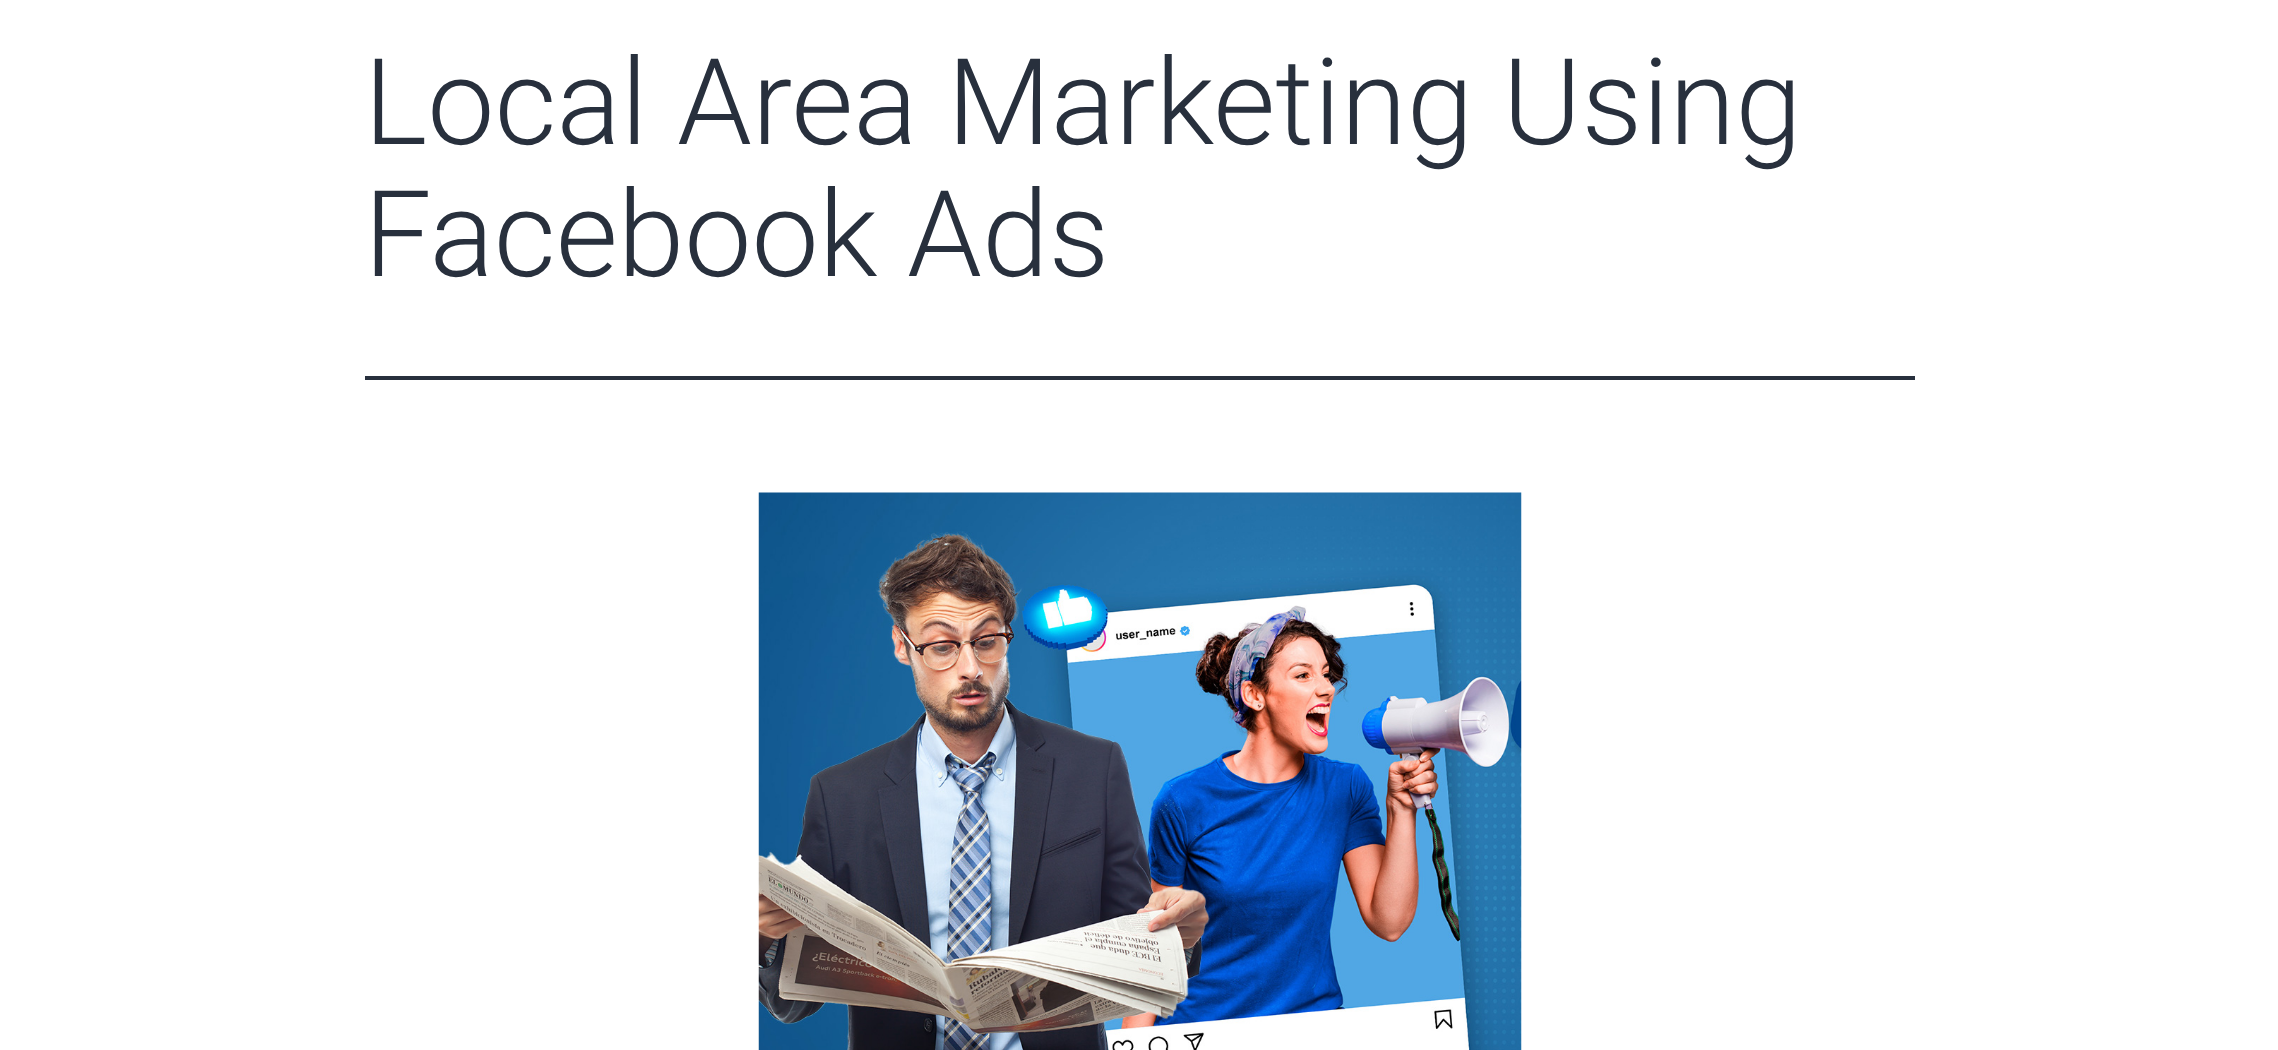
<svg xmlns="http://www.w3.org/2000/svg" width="2278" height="1050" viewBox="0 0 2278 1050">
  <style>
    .t1 { font: 300 120px Roboto; fill: #28303d; }
  </style>
  <rect width="100%" height="100%" fill="#fff"/>
  <rect x="365" y="376" width="1550" height="4" fill="#28303d"/>
  <text x="364" y="144" class="t1">Local Area Marketing Using</text>
  <text x="364" y="276" class="t1">Facebook Ads</text>
  <image x="758" y="492" width="764" height="558" href="images/1.png"/>
</svg>
